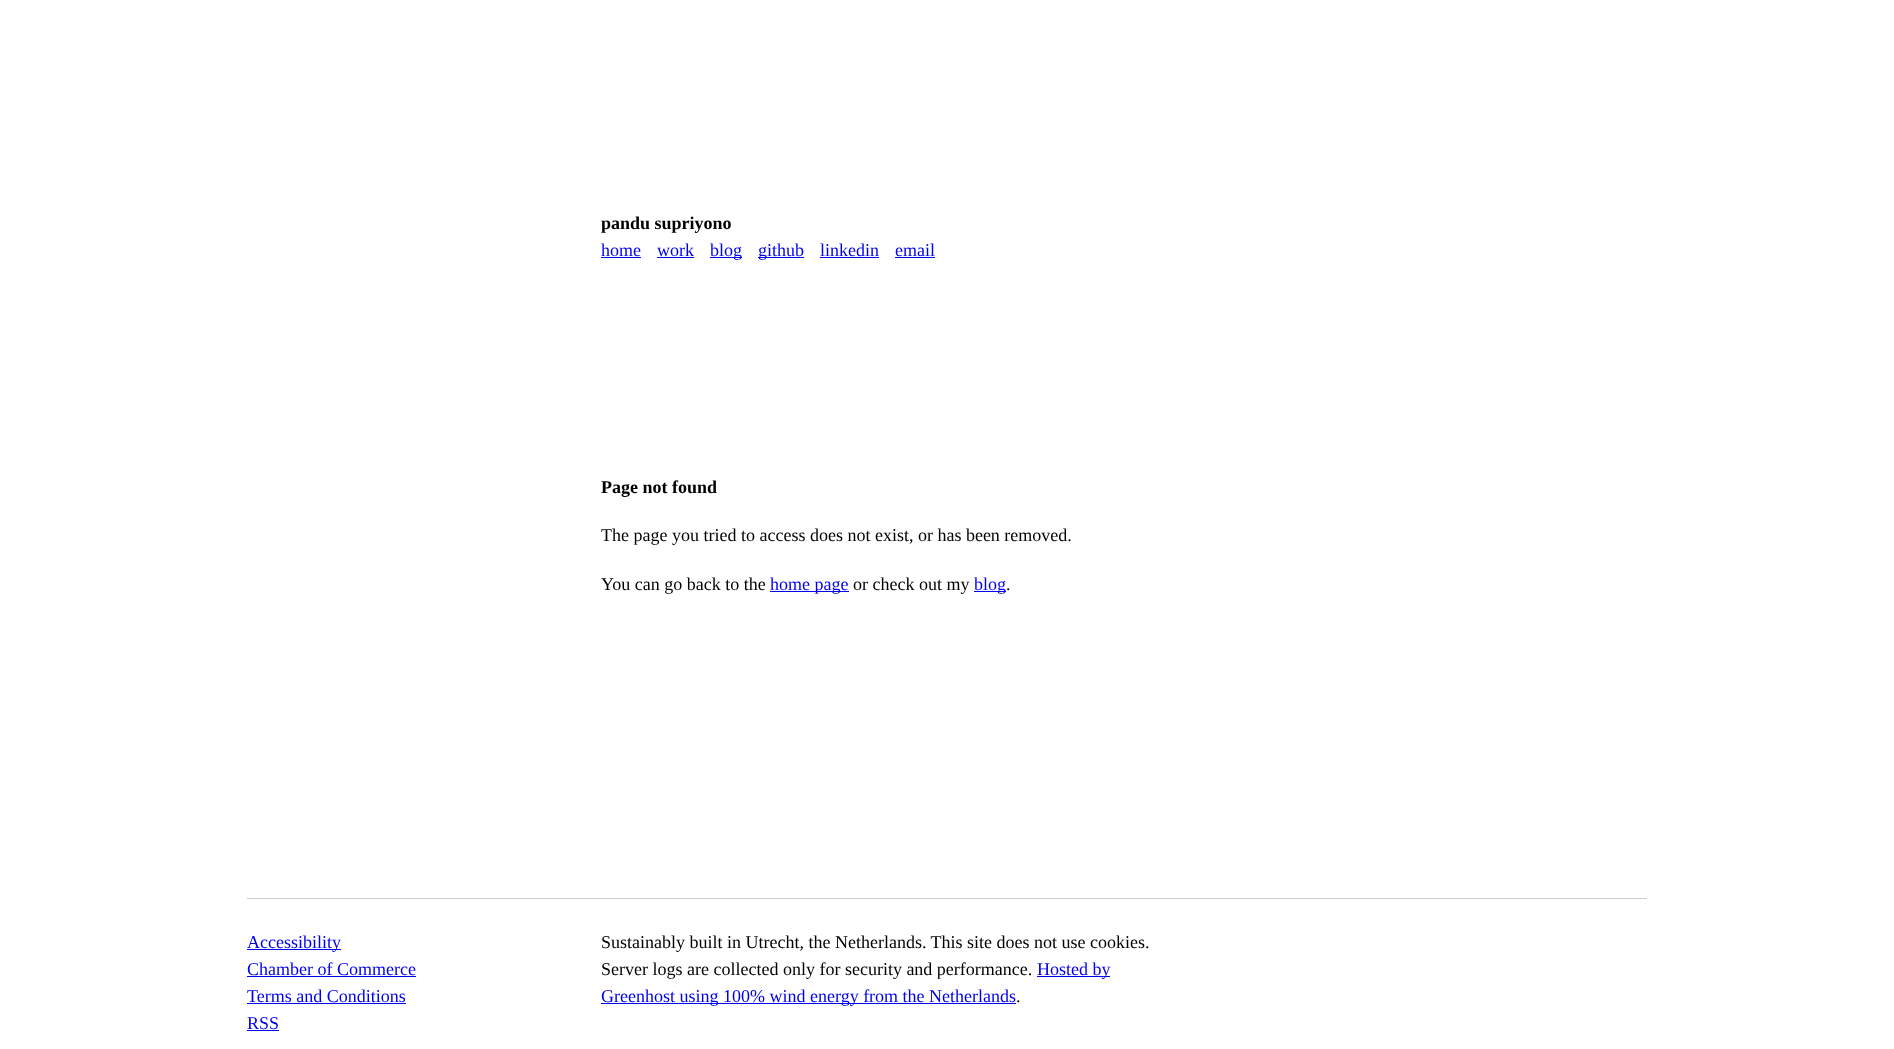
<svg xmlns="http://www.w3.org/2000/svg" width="1894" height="1049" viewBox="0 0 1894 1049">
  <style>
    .t1 { font: bold 18px Liberation Serif; fill: #000; }
    .t2 { font: 18px Liberation Serif; fill: #00e; }
    .t3 { font: 18px Liberation Serif; fill: #000; }
  </style>
  <rect width="100%" height="100%" fill="#fff"/>
  <text x="601" y="229" class="t1">pandu supriyono</text>
  <text x="601" y="256" class="t2">home</text>
  <rect x="601" y="257" width="40" height="1" fill="#00e"/>
  <text x="657" y="256" class="t2">work</text>
  <rect x="657" y="257" width="37" height="1" fill="#00e"/>
  <rect x="710" y="257" width="32" height="1" fill="#00e"/>
  <text x="710" y="256" class="t2">blog</text>
  <rect x="758" y="257" width="46" height="1" fill="#00e"/>
  <text x="758" y="256" class="t2">github</text>
  <text x="820" y="256" class="t2">linkedin</text>
  <rect x="820" y="257" width="59" height="1" fill="#00e"/>
  <text x="895" y="256" class="t2">email</text>
  <rect x="895" y="257" width="40" height="1" fill="#00e"/>
  <text x="601" y="493" class="t1">Page not found</text>
  <text x="601" y="541" class="t3">The page you tried to access does not exist, or has been removed.</text>
  <text x="601" y="590" class="t3">You can go back to the</text>
  <rect x="770" y="591" width="79" height="1" fill="#00e"/>
  <text x="770" y="590" class="t2">home page</text>
  <text x="853" y="590" class="t3">or check out my</text>
  <rect x="974" y="591" width="32" height="1" fill="#00e"/>
  <text x="974" y="590" class="t2">blog</text>
  <text x="1006" y="590" class="t3">.</text>
  <rect x="247" y="898" width="1400" height="1" fill="#c8ccd1"/>
  <rect x="247" y="949" width="94" height="1" fill="#00e"/>
  <text x="247" y="948" class="t2">Accessibility</text>
  <text x="247" y="975" class="t2">Chamber of Commerce</text>
  <rect x="247" y="976" width="169" height="1" fill="#00e"/>
  <text x="247" y="1002" class="t2">Terms and Conditions</text>
  <rect x="247" y="1003" width="159" height="1" fill="#00e"/>
  <text x="247" y="1029" class="t2">RSS</text>
  <rect x="247" y="1030" width="32" height="1" fill="#00e"/>
  <text x="601" y="948" class="t3">Sustainably built in Utrecht, the Netherlands. This site does not use cookies.</text>
  <text x="601" y="975" class="t3">Server logs are collected only for security and performance.</text>
  <rect x="1037" y="976" width="73" height="1" fill="#00e"/>
  <text x="1037" y="975" class="t2">Hosted by</text>
  <rect x="601" y="1003" width="415" height="1" fill="#00e"/>
  <text x="601" y="1002" class="t2">Greenhost using 100% wind energy from the Netherlands</text>
  <text x="1016" y="1002" class="t3">.</text>
</svg>
